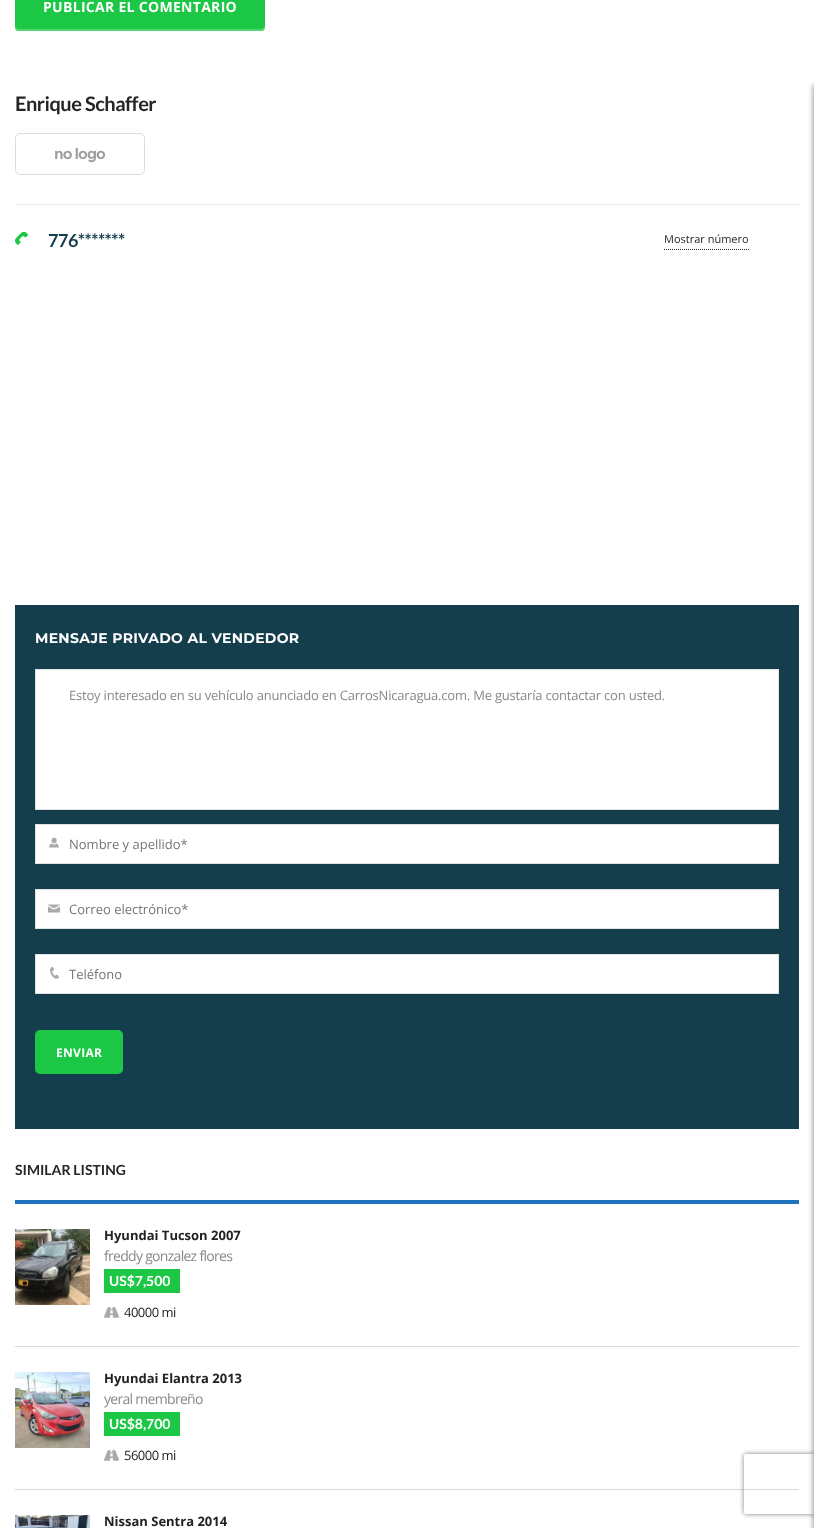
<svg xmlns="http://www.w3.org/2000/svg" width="814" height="1528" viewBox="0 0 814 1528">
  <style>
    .t1 { font: bold 14px Open Sans; letter-spacing: 0.3px; fill: #fff; }
    .t2 { font: bold 20px Lato; letter-spacing: -0.5px; fill: #232628; }
    .t3 { font: bold 18px Lato; letter-spacing: -0.5px; fill: #153e4d; }
    .t4 { font: 11px Open Sans; fill: #232628; }
    .t5 { font: bold 14px Montserrat; letter-spacing: 0.3px; fill: #fff; }
    .t6 { font: 13px Open Sans; letter-spacing: -0.2px; fill: #888; }
    .t7 { font: 13px Open Sans; fill: #757575; }
    .t8 { font: bold 12px Open Sans; letter-spacing: 0.3px; fill: #fff; }
    .t9 { font: bold 14px Lato; fill: #232628; }
    .t10 { font: bold 13px Open Sans; fill: #222; }
    .t11 { font: 14px Open Sans; letter-spacing: -0.7px; fill: #888; }
    .t12 { font: bold 14px Lato; fill: #fff; }
    .t13 { font: 13px Open Sans; letter-spacing: -0.5px; fill: #222; }
  </style>
  <defs>
    <clipPath id="clip1"><path d="M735 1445H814V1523H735ZM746 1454H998C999 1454 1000 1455 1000 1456V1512C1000 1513 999 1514 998 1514H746C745 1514 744 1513 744 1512V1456C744 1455 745 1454 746 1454Z" clip-rule="evenodd"/></clipPath>
  </defs>
  <rect width="100%" height="100%" fill="#fff"/>
  <path d="M15 26C15 28 15 31 18 31H262C265 31 265 28 265 26C265 28 264 29 262 29H18C16 29 15 28 15 26Z" fill="#54d573"/>
  <rect x="15" y="-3" width="250" height="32" rx="3" fill="#1bc744"/>
  <text x="43" y="12" class="t1">PUBLICAR EL COMENTARIO</text>
  <text x="15" y="111" class="t2">Enrique</text>
  <text x="85" y="111" class="t2">Schaffer</text>
  <rect x="15.5" y="133.5" width="129" height="41" rx="4.5" fill="none" stroke="#ddd"/>
  <image x="55" y="147" width="51" height="16" href="images/1.png"/>
  <rect x="15" y="204" width="784" height="1" fill="#e5e8ec"/>
  <image x="15" y="231" width="13" height="14" href="images/2.png"/>
  <text x="48" y="247" class="t3">776*******</text>
  <path d="M664 249.5H749" fill="none" stroke="#232628" stroke-dasharray="1 1"/>
  <text x="664" y="243" class="t4">Mostrar número</text>
  <rect x="15" y="605" width="784" height="524" fill="#153e4d"/>
  <text x="35" y="643" class="t5">MENSAJE PRIVADO AL VENDEDOR</text>
  <rect x="35.5" y="669.5" width="743" height="140" fill="#fff" stroke="#e1e2e4"/>
  <text x="69" y="700" class="t6">Estoy interesado en su vehículo anunciado en CarrosNicaragua.com. Me gustaría contactar con usted.</text>
  <rect x="35.5" y="824.5" width="743" height="39" fill="#fff" stroke="#e1e2e4"/>
  <image x="49" y="837" width="10" height="11" href="images/3.png"/>
  <text x="69" y="849" class="t7">Nombre y apellido*</text>
  <rect x="35.5" y="889.5" width="743" height="39" fill="#fff" stroke="#e1e2e4"/>
  <image x="48" y="904" width="12" height="9" href="images/4.png"/>
  <text x="69" y="914" class="t7">Correo electrónico*</text>
  <rect x="35.5" y="954.5" width="743" height="39" fill="#fff" stroke="#e1e2e4"/>
  <image x="50" y="966" width="9" height="13" href="images/5.png"/>
  <text x="69" y="979" class="t7">Teléfono</text>
  <rect x="35" y="1030" width="88" height="44" rx="5" fill="#1bc744"/>
  <text x="56" y="1057" class="t8">ENVIAR</text>
  <rect x="15" y="1200" width="784" height="4" fill="#1e73be"/>
  <text x="15" y="1175" class="t9">SIMILAR LISTING</text>
  <image x="15" y="1229" width="75" height="76" href="images/6.png"/>
  <text x="104" y="1240" class="t10">Hyundai Tucson 2007</text>
  <text x="104" y="1261" class="t11">freddy gonzalez flores</text>
  <rect x="104" y="1269" width="76" height="24" fill="#1bc744"/>
  <text x="109" y="1286" class="t12">US$7,500</text>
  <image x="104" y="1307" width="15" height="11" href="images/7.png"/>
  <text x="124" y="1317" class="t13">40000 mi</text>
  <rect x="15" y="1346" width="784" height="1" fill="#d5d9e0"/>
  <image x="15" y="1372" width="75" height="76" href="images/8.png"/>
  <text x="104" y="1383" class="t10">Hyundai Elantra 2013</text>
  <text x="104" y="1404" class="t11">yeral membreño</text>
  <rect x="104" y="1412" width="76" height="24" fill="#1bc744"/>
  <text x="109" y="1429" class="t12">US$8,700</text>
  <image x="104" y="1450" width="15" height="11" href="images/7.png"/>
  <text x="124" y="1460" class="t13">56000 mi</text>
  <rect x="15" y="1489" width="784" height="1" fill="#d5d9e0"/>
  <image x="15" y="1515" width="75" height="13" href="images/9.png"/>
  <text x="104" y="1526" class="t10">Nissan Sentra 2014</text>
  <rect x="813" y="85" width="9" height="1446" fill="#00000033" filter="blur(2.5px)"/>
  <rect x="813" y="85" width="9" height="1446" fill="#00000033" filter="blur(2.5px)"/>
  <g clip-path="url(#clip1)">
    <rect x="744" y="1454" width="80" height="60" rx="2" fill="#808080" filter="blur(2.5px)"/>
  </g>
</svg>
